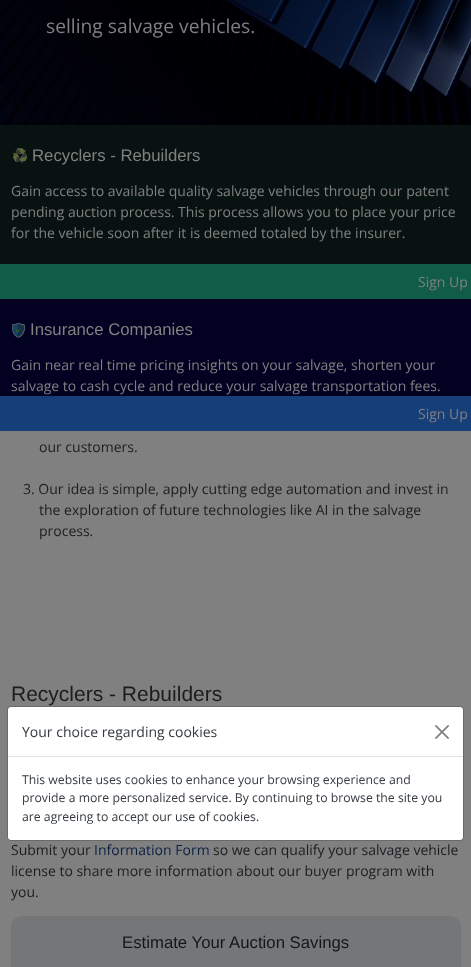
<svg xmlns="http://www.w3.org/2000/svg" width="471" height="967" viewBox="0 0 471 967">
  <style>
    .t1 { font: 19.25px Open Sans; fill: #808080; }
    .t2 { font: 16.75px Liberation Sans; fill: #808080; }
    .t3 { font: 14px Open Sans; fill: #808080; }
    .t4 { font: 14px Open Sans; fill: #1a1d20; }
    .t5 { font: 21px Liberation Sans; fill: #1a1d20; }
    .t6 { font: 14px Open Sans; fill: #0b2141; }
    .t7 { font: 16.75px Liberation Sans; fill: #11181f; }
    .t8 { font: 14px Open Sans; fill: #343a40; }
    .t9 { font: 12.25px Open Sans; fill: #343a40; }
  </style>
  <rect width="100%" height="100%" fill="#808080"/>
  <image x="0" y="0" width="471" height="125" href="images/1.png"/>
  <text x="46" y="33" class="t1">selling salvage vehicles.</text>
  <rect x="0" y="125" width="471" height="139" fill="#081311"/>
  <image x="12" y="148" width="15" height="16" href="images/2.png"/>
  <text x="32" y="161" class="t2">Recyclers - Rebuilders</text>
  <text x="11" y="196" class="t3">Gain access to available quality salvage vehicles through our patent</text>
  <text x="11" y="217" class="t3">pending auction process. This process allows you to place your price</text>
  <text x="11" y="238" class="t3">for the vehicle soon after it is deemed totaled by the insurer.</text>
  <rect x="0" y="264" width="471" height="35" fill="#115c48"/>
  <text x="418" y="287" class="t3">Sign Up</text>
  <rect x="0" y="299" width="471" height="97" fill="#030122"/>
  <image x="12" y="323" width="13" height="15" href="images/3.png"/>
  <text x="30" y="335" class="t2">Insurance Companies</text>
  <text x="11" y="370" class="t3">Gain near real time pricing insights on your salvage, shorten your</text>
  <text x="11" y="391" class="t3">salvage to cash cycle and reduce your salvage transportation fees.</text>
  <rect x="0" y="396" width="471" height="35" fill="#163e79"/>
  <text x="418" y="419" class="t3">Sign Up</text>
  <text x="39" y="452" class="t4">our customers.</text>
  <text x="23" y="494" class="t4">3. Our idea is simple, apply cutting edge automation and invest in</text>
  <text x="39" y="515" class="t4">the exploration of future technologies like AI in the salvage</text>
  <text x="39" y="536" class="t4">process.</text>
  <text x="11" y="701" class="t5">Recyclers - Rebuilders</text>
  <text x="11" y="855" class="t4">Submit your</text>
  <text x="94" y="855" class="t6">Information Form</text>
  <text x="213" y="855" class="t4">so we can qualify your salvage vehicle</text>
  <text x="11" y="876" class="t4">license to share more information about our buyer program with</text>
  <text x="11" y="897" class="t4">you.</text>
  <rect x="11" y="916" width="450" height="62" rx="11" fill="#757678"/>
  <text x="122" y="948" class="t7">Estimate Your Auction Savings</text>
  <rect x="8" y="707" width="455" height="133" rx="3" fill="#fff"/>
  <rect x="7.5" y="706.5" width="456" height="134" rx="3.5" fill="none" stroke="#0000002e"/>
  <rect x="8" y="756" width="455" height="1" fill="#dee2e6"/>
  <text x="22" y="737" class="t8">Your choice regarding cookies</text>
  <image x="435" y="725" width="14" height="14" href="images/4.png"/>
  <text x="22" y="784" class="t9">This website uses cookies to enhance your browsing experience and</text>
  <text x="22" y="802" class="t9">provide a more personalized service. By continuing to browse the site you</text>
  <text x="22" y="821" class="t9">are agreeing to accept our use of cookies.</text>
</svg>
